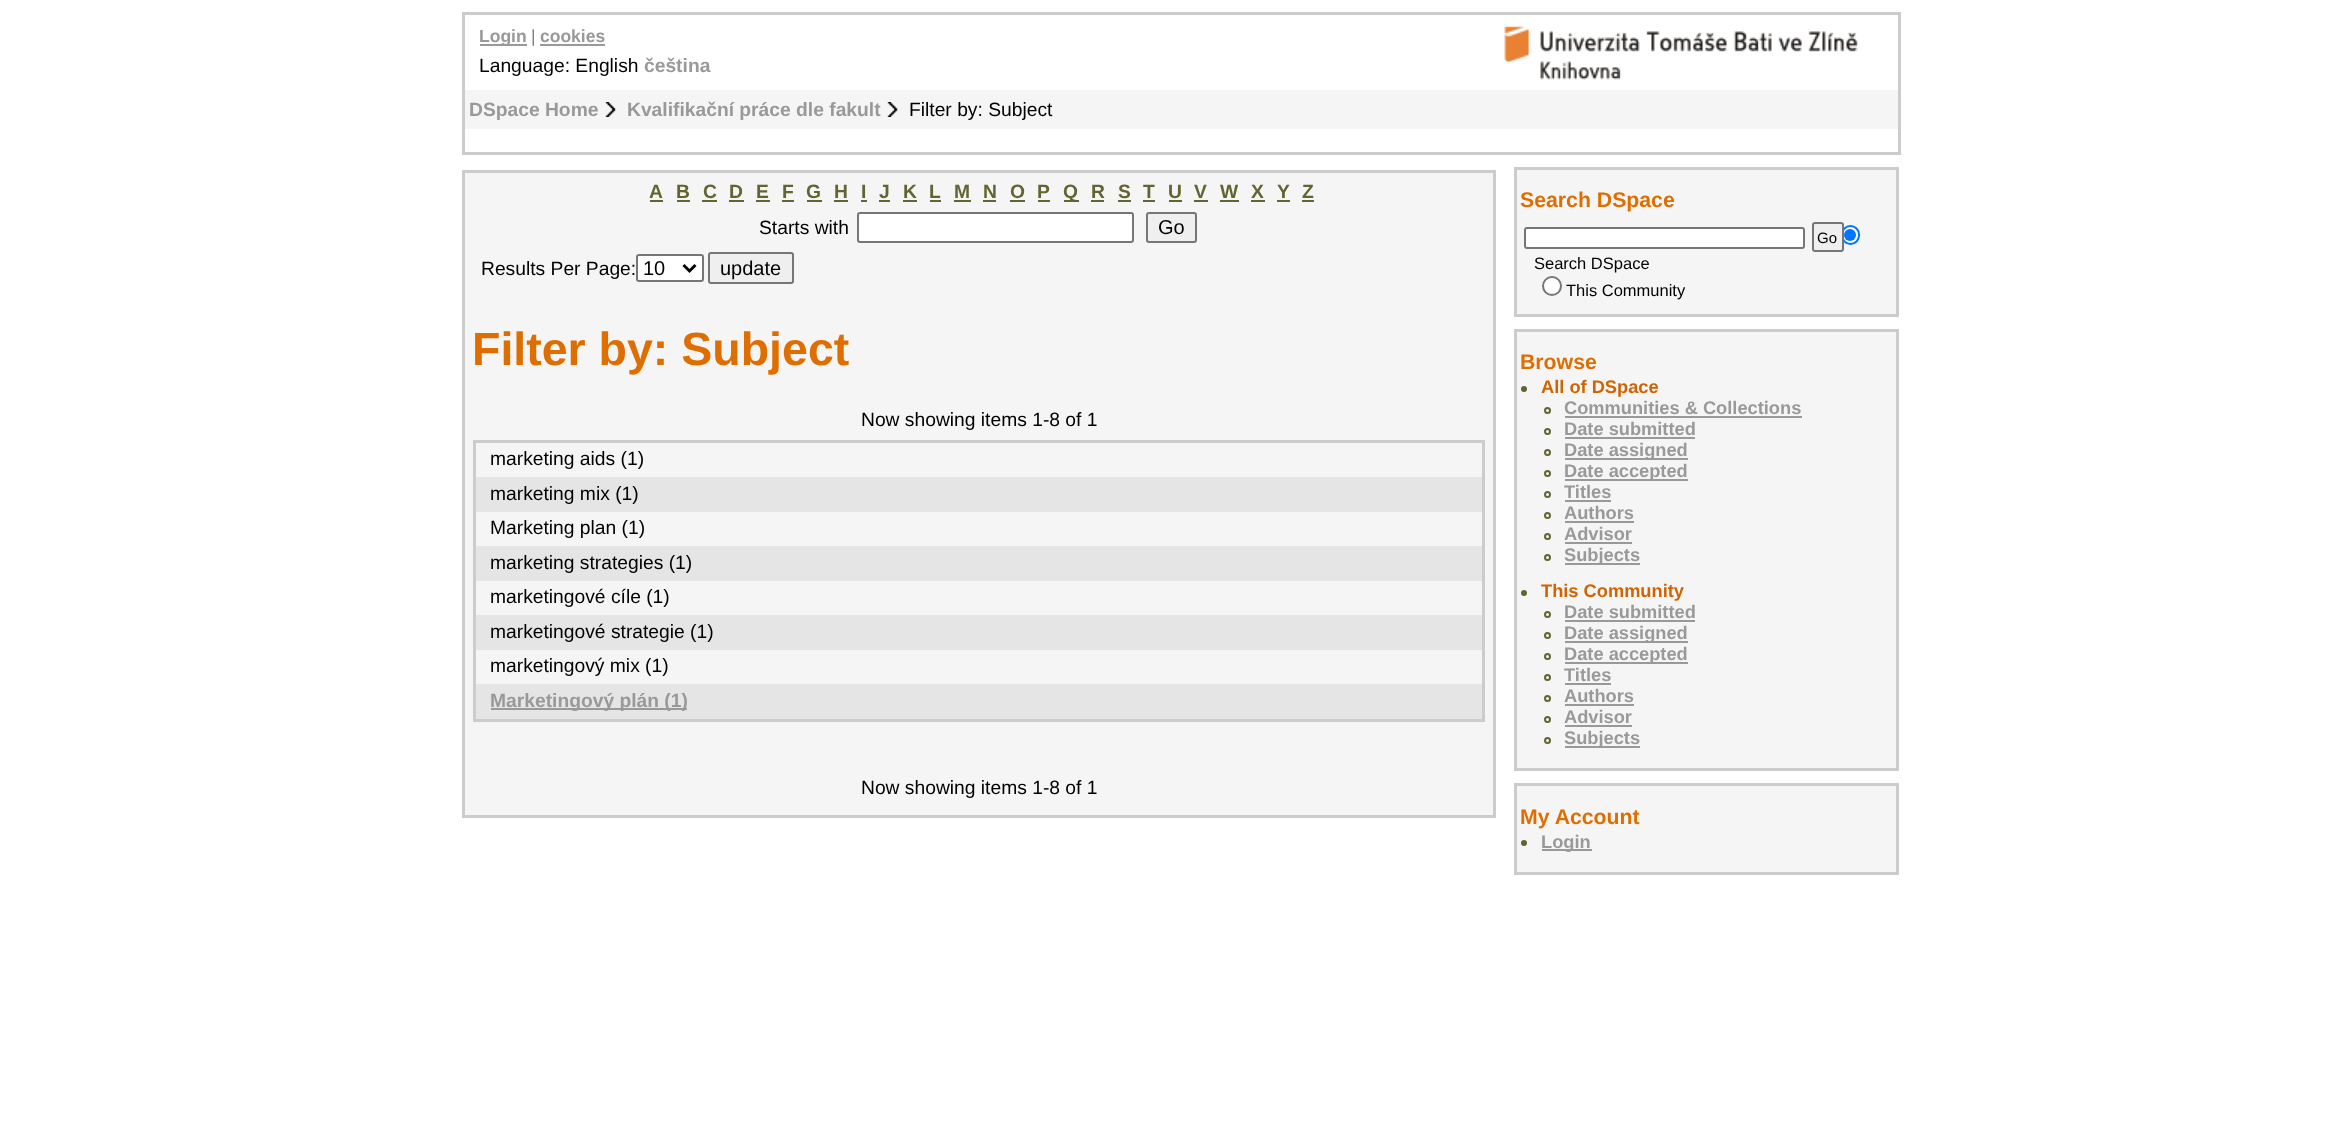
<svg xmlns="http://www.w3.org/2000/svg" width="2347" height="1147" viewBox="0 0 2347 1147">
  <style>
    .t1 { font: bold 17.5px Liberation Sans; fill: #999; }
    .t2 { font: 17.5px Liberation Sans; fill: #808080; }
    .t3 { font: 19.25px Liberation Sans; fill: #000; }
    .t4 { font: bold 19.25px Liberation Sans; fill: #999; }
    .t5 { font: bold 19.25px Liberation Sans; fill: #646432; }
    .t6 { font: 20px Liberation Sans; fill: #000; }
    .t7 { font: bold 46.5px Liberation Sans; fill: #df6e00; }
    .t8 { font: bold 21.25px Liberation Sans; fill: #df6e00; }
    .t9 { font: 15px Liberation Sans; fill: #000; }
    .t10 { font: 16.5px Liberation Sans; fill: #000; }
    .t11 { font: bold 18.25px Liberation Sans; fill: #d26400; }
    .t12 { font: bold 18.25px Liberation Sans; fill: #999; }
  </style>
  <rect width="100%" height="100%" fill="#fff"/>
  <rect x="463.5" y="13.5" width="1436" height="140" fill="none" stroke="#ccc" stroke-width="3"/>
  <rect x="480" y="44" width="47" height="2" fill="#999"/>
  <text x="479" y="42" class="t1">Login</text>
  <text x="531" y="42" class="t2">|</text>
  <text x="540" y="42" class="t1">cookies</text>
  <rect x="540" y="44" width="65" height="2" fill="#999"/>
  <image x="1504" y="25" width="354" height="55" href="images/1.png"/>
  <text x="479" y="72" class="t3">Language: English</text>
  <text x="644" y="72" class="t4">čeština</text>
  <rect x="465" y="90" width="1433" height="39" fill="#f5f5f5"/>
  <text x="469" y="116" class="t4">DSpace Home</text>
  <image x="605" y="102" width="11" height="15" href="images/2.png"/>
  <text x="627" y="116" class="t4">Kvalifikační práce dle fakult</text>
  <image x="887" y="102" width="11" height="15" href="images/3.png"/>
  <text x="909" y="116" class="t3">Filter by: Subject</text>
  <rect x="463.5" y="171.5" width="1031" height="645" fill="#f5f5f5" stroke="#ccc" stroke-width="3"/>
  <text x="649" y="198" class="t5">A</text>
  <rect x="650" y="200" width="13" height="2" fill="#646432"/>
  <text x="676" y="198" class="t5">B</text>
  <rect x="677" y="200" width="13" height="2" fill="#646432"/>
  <text x="703" y="198" class="t5">C</text>
  <rect x="702" y="200" width="15" height="2" fill="#646432"/>
  <text x="729" y="198" class="t5">D</text>
  <rect x="729" y="200" width="15" height="2" fill="#646432"/>
  <text x="756" y="198" class="t5">E</text>
  <rect x="756" y="200" width="14" height="2" fill="#646432"/>
  <text x="782" y="198" class="t5">F</text>
  <rect x="782" y="200" width="12" height="2" fill="#646432"/>
  <text x="806" y="198" class="t5">G</text>
  <rect x="807" y="200" width="15" height="2" fill="#646432"/>
  <text x="834" y="198" class="t5">H</text>
  <rect x="834" y="200" width="14" height="2" fill="#646432"/>
  <text x="861" y="198" class="t5">I</text>
  <rect x="861" y="200" width="6" height="2" fill="#646432"/>
  <text x="879" y="198" class="t5">J</text>
  <rect x="879" y="200" width="11" height="2" fill="#646432"/>
  <text x="903" y="198" class="t5">K</text>
  <rect x="903" y="200" width="14" height="2" fill="#646432"/>
  <text x="929" y="198" class="t5">L</text>
  <rect x="930" y="200" width="11" height="2" fill="#646432"/>
  <text x="954" y="198" class="t5">M</text>
  <rect x="954" y="200" width="17" height="2" fill="#646432"/>
  <text x="983" y="198" class="t5">N</text>
  <rect x="983" y="200" width="13" height="2" fill="#646432"/>
  <text x="1010" y="198" class="t5">O</text>
  <rect x="1010" y="200" width="15" height="2" fill="#646432"/>
  <text x="1037" y="198" class="t5">P</text>
  <rect x="1038" y="200" width="12" height="2" fill="#646432"/>
  <rect x="1064" y="200" width="15" height="2" fill="#646432"/>
  <text x="1063" y="198" class="t5">Q</text>
  <text x="1091" y="198" class="t5">R</text>
  <rect x="1091" y="200" width="13" height="2" fill="#646432"/>
  <text x="1118" y="198" class="t5">S</text>
  <rect x="1118" y="200" width="13" height="2" fill="#646432"/>
  <text x="1143" y="198" class="t5">T</text>
  <rect x="1143" y="200" width="12" height="2" fill="#646432"/>
  <text x="1168" y="198" class="t5">U</text>
  <rect x="1169" y="200" width="13" height="2" fill="#646432"/>
  <text x="1194" y="198" class="t5">V</text>
  <rect x="1194" y="200" width="14" height="2" fill="#646432"/>
  <text x="1220" y="198" class="t5">W</text>
  <rect x="1220" y="200" width="19" height="2" fill="#646432"/>
  <text x="1251" y="198" class="t5">X</text>
  <rect x="1251" y="200" width="14" height="2" fill="#646432"/>
  <text x="1277" y="198" class="t5">Y</text>
  <rect x="1277" y="200" width="13" height="2" fill="#646432"/>
  <text x="1302" y="198" class="t5">Z</text>
  <rect x="1302" y="200" width="12" height="2" fill="#646432"/>
  <text x="759" y="234" class="t3">Starts with</text>
  <rect x="858" y="213" width="275" height="29" rx="2" fill="#fff" stroke="#767676" stroke-width="2"/>
  <rect x="1147" y="213" width="49" height="29" rx="2" fill="#efefef" stroke="#767676" stroke-width="2"/>
  <text x="1158" y="234" class="t6">Go</text>
  <text x="481" y="275" class="t3">Results Per Page:</text>
  <rect x="637" y="255" width="66" height="26" rx="2" fill="#fff" stroke="#767676" stroke-width="2"/>
  <path d="M683.5 265L689.5 271L695.5 265" fill="none" stroke="#000" stroke-width="3"/>
  <text x="643" y="275" class="t6">10</text>
  <rect x="709" y="253" width="84" height="30" rx="2" fill="#efefef" stroke="#767676" stroke-width="2"/>
  <text x="720" y="275" class="t6">update</text>
  <text x="472" y="365" class="t7">Filter by: Subject</text>
  <text x="861" y="426" class="t3">Now showing items 1-8 of 1</text>
  <rect x="474.5" y="441.5" width="1009" height="279" fill="none" stroke="#ccc" stroke-width="3"/>
  <text x="490" y="465" class="t3">marketing aids (1)</text>
  <rect x="476" y="477" width="1006" height="35" fill="#e5e5e5"/>
  <text x="490" y="500" class="t3">marketing mix (1)</text>
  <text x="490" y="534" class="t3">Marketing plan (1)</text>
  <rect x="476" y="546" width="1006" height="35" fill="#e5e5e5"/>
  <text x="490" y="569" class="t3">marketing strategies (1)</text>
  <text x="490" y="603" class="t3">marketingové cíle (1)</text>
  <rect x="476" y="615" width="1006" height="35" fill="#e5e5e5"/>
  <text x="490" y="638" class="t3">marketingové strategie (1)</text>
  <text x="490" y="672" class="t3">marketingový mix (1)</text>
  <rect x="476" y="684" width="1006" height="35" fill="#e5e5e5"/>
  <rect x="491" y="708" width="196" height="2" fill="#999"/>
  <text x="490" y="707" class="t4">Marketingový plán (1)</text>
  <text x="861" y="794" class="t3">Now showing items 1-8 of 1</text>
  <rect x="1515.5" y="168.5" width="382" height="147" fill="#f5f5f5" stroke="#ccc" stroke-width="3"/>
  <text x="1520" y="207" class="t8">Search DSpace</text>
  <rect x="1525" y="228" width="279" height="20" rx="2" fill="#fff" stroke="#767676" stroke-width="2"/>
  <rect x="1842" y="226" width="17" height="18" rx="8.5" fill="#fff" stroke="#0075ff" stroke-width="2"/>
  <rect x="1813" y="223" width="30" height="28" rx="2" fill="#efefef" stroke="#767676" stroke-width="2"/>
  <text x="1817" y="243" class="t9">Go</text>
  <circle cx="1850" cy="235" r="6" fill="#0075ff"/>
  <text x="1534" y="269" class="t10">Search DSpace</text>
  <circle cx="1552" cy="286" r="9" fill="#fff" stroke="#767676" stroke-width="2"/>
  <text x="1566" y="296" class="t10">This Community</text>
  <rect x="1515.5" y="330.5" width="382" height="439" fill="#f5f5f5" stroke="#ccc" stroke-width="3"/>
  <text x="1520" y="369" class="t8">Browse</text>
  <circle cx="1524" cy="389" r="3" fill="#646432"/>
  <text x="1541" y="393" class="t11">All of DSpace</text>
  <circle cx="1547.5" cy="410.5" r="2.5" fill="none" stroke="#646432" stroke-width="2"/>
  <text x="1564" y="414" class="t12">Communities &amp; Collections</text>
  <rect x="1565" y="416" width="237" height="2" fill="#999"/>
  <circle cx="1547.5" cy="431.5" r="2.5" fill="none" stroke="#646432" stroke-width="2"/>
  <text x="1564" y="435" class="t12">Date submitted</text>
  <rect x="1565" y="437" width="130" height="2" fill="#999"/>
  <circle cx="1547.5" cy="452.5" r="2.5" fill="none" stroke="#646432" stroke-width="2"/>
  <rect x="1565" y="458" width="123" height="2" fill="#999"/>
  <text x="1564" y="456" class="t12">Date assigned</text>
  <circle cx="1547.5" cy="473.5" r="2.5" fill="none" stroke="#646432" stroke-width="2"/>
  <rect x="1565" y="479" width="123" height="2" fill="#999"/>
  <text x="1564" y="477" class="t12">Date accepted</text>
  <circle cx="1547.5" cy="494.5" r="2.5" fill="none" stroke="#646432" stroke-width="2"/>
  <text x="1564" y="498" class="t12">Titles</text>
  <rect x="1565" y="500" width="46" height="2" fill="#999"/>
  <circle cx="1547.5" cy="515.5" r="2.5" fill="none" stroke="#646432" stroke-width="2"/>
  <text x="1564" y="519" class="t12">Authors</text>
  <rect x="1565" y="521" width="69" height="2" fill="#999"/>
  <circle cx="1547.5" cy="536.5" r="2.5" fill="none" stroke="#646432" stroke-width="2"/>
  <text x="1564" y="540" class="t12">Advisor</text>
  <rect x="1565" y="542" width="67" height="2" fill="#999"/>
  <circle cx="1547.5" cy="557.5" r="2.5" fill="none" stroke="#646432" stroke-width="2"/>
  <rect x="1565" y="563" width="75" height="2" fill="#999"/>
  <text x="1564" y="561" class="t12">Subjects</text>
  <circle cx="1524" cy="593" r="3" fill="#646432"/>
  <text x="1541" y="597" class="t11">This Community</text>
  <circle cx="1547.5" cy="614.5" r="2.5" fill="none" stroke="#646432" stroke-width="2"/>
  <text x="1564" y="618" class="t12">Date submitted</text>
  <rect x="1565" y="620" width="130" height="2" fill="#999"/>
  <circle cx="1547.5" cy="635.5" r="2.5" fill="none" stroke="#646432" stroke-width="2"/>
  <rect x="1565" y="641" width="123" height="2" fill="#999"/>
  <text x="1564" y="639" class="t12">Date assigned</text>
  <circle cx="1547.5" cy="656.5" r="2.5" fill="none" stroke="#646432" stroke-width="2"/>
  <rect x="1565" y="662" width="123" height="2" fill="#999"/>
  <text x="1564" y="660" class="t12">Date accepted</text>
  <circle cx="1547.5" cy="677.5" r="2.5" fill="none" stroke="#646432" stroke-width="2"/>
  <text x="1564" y="681" class="t12">Titles</text>
  <rect x="1565" y="683" width="46" height="2" fill="#999"/>
  <circle cx="1547.5" cy="698.5" r="2.5" fill="none" stroke="#646432" stroke-width="2"/>
  <text x="1564" y="702" class="t12">Authors</text>
  <rect x="1565" y="704" width="69" height="2" fill="#999"/>
  <circle cx="1547.5" cy="719.5" r="2.5" fill="none" stroke="#646432" stroke-width="2"/>
  <text x="1564" y="723" class="t12">Advisor</text>
  <rect x="1565" y="725" width="67" height="2" fill="#999"/>
  <circle cx="1547.5" cy="740.5" r="2.5" fill="none" stroke="#646432" stroke-width="2"/>
  <rect x="1565" y="746" width="75" height="2" fill="#999"/>
  <text x="1564" y="744" class="t12">Subjects</text>
  <rect x="1515.5" y="784.5" width="382" height="89" fill="#f5f5f5" stroke="#ccc" stroke-width="3"/>
  <text x="1520" y="824" class="t8">My Account</text>
  <circle cx="1524" cy="843" r="3" fill="#646432"/>
  <rect x="1542" y="849" width="50" height="2" fill="#999"/>
  <text x="1541" y="848" class="t12">Login</text>
</svg>
